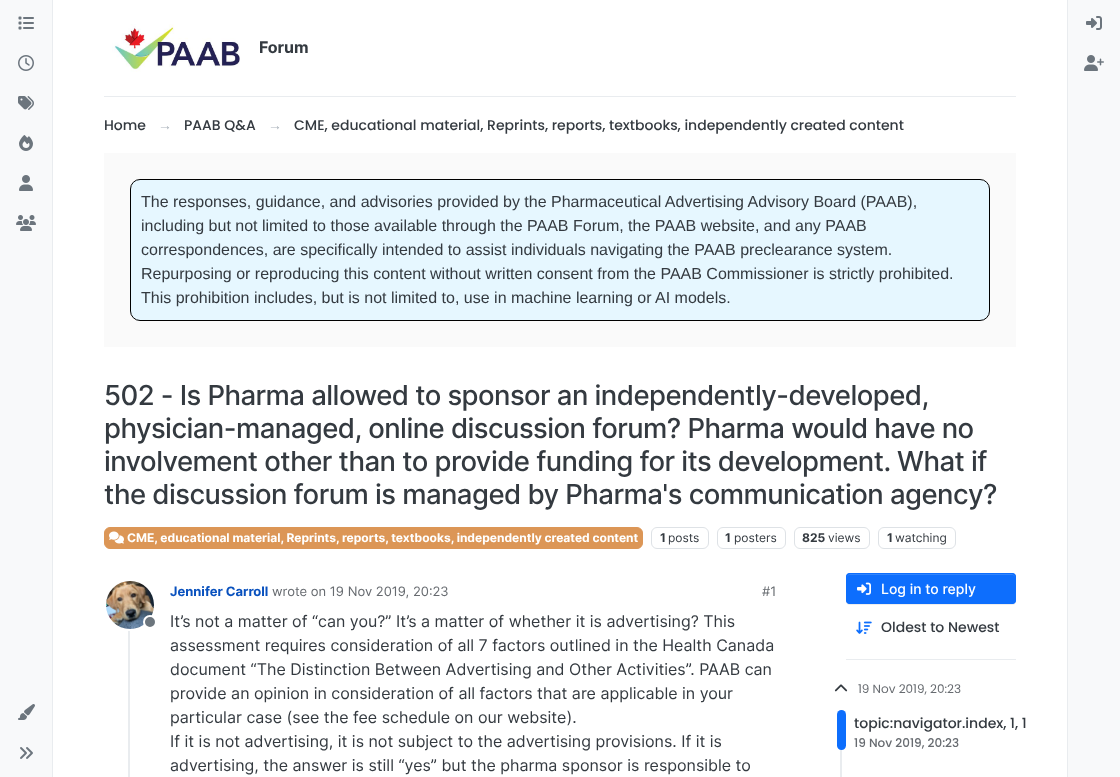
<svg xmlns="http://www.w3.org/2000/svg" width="1120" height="777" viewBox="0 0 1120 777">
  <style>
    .t1 { font: bold 16px Inter; fill: #343a40; }
    .t2 { font: 500 14px Poppins; fill: #343a40; }
    .t3 { font: 14px Liberation Sans; fill: #adb5bd; }
    .t4 { font: 16px Liberation Sans; fill: #343a40; }
    .t5 { font: 500 27.5px Inter; letter-spacing: -0.55px; fill: #343a40; }
    .t6 { font: bold 12px Inter; fill: #fff; }
    .t7 { font: bold 12px Inter; fill: #343a40; }
    .t8 { font: 12px Inter; fill: #343a40; }
    .t9 { font: bold 13px Inter; fill: #0951be; }
    .t10 { font: 13px Inter; fill: #676b70; }
    .t11 { font: 16px Inter; fill: #343a40; }
    .t12 { font: 500 14px Inter; fill: #fff; }
    .t13 { font: 12px Poppins; fill: #676b70; }
    .t14 { font: 500 12px Poppins; fill: #676b70; }
  </style>
  <rect width="100%" height="100%" fill="#fff"/>
  <rect x="0" y="0" width="52" height="777" fill="#f8f9fa"/>
  <rect x="52" y="0" width="1" height="777" fill="#e9ecef"/>
  <image x="18" y="16" width="16" height="14" href="images/1.png"/>
  <image x="18" y="55" width="16" height="16" href="images/2.png"/>
  <image x="18" y="96" width="16" height="14" href="images/3.png"/>
  <image x="19" y="135" width="14" height="16" href="images/4.png"/>
  <image x="19" y="175" width="14" height="16" href="images/5.png"/>
  <image x="16" y="215" width="20" height="16" href="images/6.png"/>
  <image x="18" y="704" width="17" height="16" href="images/7.png"/>
  <image x="20" y="747" width="13" height="12" href="images/8.png"/>
  <rect x="104" y="96" width="912" height="1" fill="#e9ecef"/>
  <image x="112" y="24" width="128" height="48" href="images/9.png"/>
  <text x="259" y="53" class="t1">Forum</text>
  <text x="104" y="130" class="t2">Home</text>
  <text x="158" y="130" class="t3">→</text>
  <text x="184" y="130" class="t2">PAAB Q&amp;A</text>
  <text x="268" y="130" class="t3">→</text>
  <text x="294" y="130" class="t2">CME, educational material, Reprints, reports, textbooks, independently created content</text>
  <rect x="104" y="153" width="912" height="194" fill="#fafafa"/>
  <rect x="130.5" y="179.5" width="859" height="141" rx="9.5" fill="#e6f7ff" stroke="#000"/>
  <text x="141" y="207" class="t4">The responses, guidance, and advisories provided by the Pharmaceutical Advertising Advisory Board (PAAB),</text>
  <text x="141" y="231" class="t4">including but not limited to those available through the PAAB Forum, the PAAB website, and any PAAB</text>
  <text x="141" y="255" class="t4">correspondences, are specifically intended to assist individuals navigating the PAAB preclearance system.</text>
  <text x="141" y="279" class="t4">Repurposing or reproducing this content without written consent from the PAAB Commissioner is strictly prohibited.</text>
  <text x="141" y="303" class="t4">This prohibition includes, but is not limited to, use in machine learning or AI models.</text>
  <text x="104" y="405" class="t5">502 - Is Pharma allowed to sponsor an independently-developed,</text>
  <text x="104" y="438" class="t5">physician-managed, online discussion forum? Pharma would have no</text>
  <text x="104" y="471" class="t5">involvement other than to provide funding for its development. What if</text>
  <text x="104" y="504" class="t5">the discussion forum is managed by Pharma's communication agency?</text>
  <rect x="104.5" y="527.5" width="538" height="21" rx="5.5" fill="#dc9656" stroke="#dc9656"/>
  <image x="109" y="531" width="15" height="13" href="images/10.png"/>
  <text x="127" y="542" class="t6">CME, educational material, Reprints, reports, textbooks, independently created content</text>
  <rect x="651.5" y="527.5" width="57" height="21" rx="5.5" fill="none" stroke="#dee2e6"/>
  <text x="660" y="542" class="t7">1</text>
  <text x="668" y="542" class="t8">posts</text>
  <rect x="717.5" y="527.5" width="68" height="21" rx="5.5" fill="none" stroke="#dee2e6"/>
  <text x="725" y="542" class="t7">1</text>
  <text x="734" y="542" class="t8">posters</text>
  <rect x="794.5" y="527.5" width="75" height="21" rx="5.5" fill="none" stroke="#dee2e6"/>
  <text x="802" y="542" class="t7">825</text>
  <text x="828" y="542" class="t8">views</text>
  <rect x="878.5" y="527.5" width="77" height="21" rx="5.5" fill="none" stroke="#dee2e6"/>
  <text x="887" y="542" class="t7">1</text>
  <text x="895" y="542" class="t8">watching</text>
  <rect x="128" y="581" width="2" height="196" fill="#e9ecef"/>
  <circle cx="130" cy="605" r="25" fill="none" stroke="#fff" stroke-width="2"/>
  <image x="106" y="581" width="48" height="48" href="images/11.png"/>
  <circle cx="150" cy="622" r="6" fill="#6c757d" stroke="#fff" stroke-width="2"/>
  <text x="170" y="596" class="t9">Jennifer Carroll</text>
  <text x="272" y="596" class="t10">wrote on 19 Nov 2019, 20:23</text>
  <text x="762" y="596" class="t10">#1</text>
  <text x="170" y="627" class="t11">It’s not a matter of “can you?” It’s a matter of whether it is advertising? This</text>
  <text x="170" y="651" class="t11">assessment requires consideration of all 7 factors outlined in the Health Canada</text>
  <text x="170" y="675" class="t11">document “The Distinction Between Advertising and Other Activities”. PAAB can</text>
  <text x="170" y="699" class="t11">provide an opinion in consideration of all factors that are applicable in your</text>
  <text x="170" y="723" class="t11">particular case (see the fee schedule on our website).</text>
  <text x="170" y="747" class="t11">If it is not advertising, it is not subject to the advertising provisions. If it is</text>
  <text x="170" y="771" class="t11">advertising, the answer is still “yes” but the pharma sponsor is responsible to</text>
  <rect x="846" y="574" width="170" height="31" rx="4" fill="#00000012" filter="blur(0.5px)"/>
  <rect x="846" y="573" width="170" height="31" rx="4" fill="#0d6efd"/>
  <path d="M850 575H1012C1014 575 1015 576 1015 578V577C1015 575 1014 574 1012 574H850C848 574 847 575 847 577V578C847 576 848 575 850 575Z" fill="#3184fd"/>
  <rect x="846.5" y="573.5" width="169" height="30" rx="3.5" fill="none" stroke="#0d6efd"/>
  <image x="857" y="582" width="14" height="13" href="images/12.png"/>
  <text x="881" y="594" class="t12">Log in to reply</text>
  <image x="856" y="621" width="16" height="13" href="images/13.png"/>
  <text x="881" y="632" class="t2">Oldest to Newest</text>
  <rect x="846" y="659" width="170" height="1" fill="#e9ecef"/>
  <image x="834" y="684" width="14" height="8" href="images/14.png"/>
  <text x="858" y="693" class="t13">19 Nov 2019, 20:23</text>
  <rect x="840" y="710" width="2" height="67" fill="#e9ecef"/>
  <rect x="837" y="710" width="9" height="40" rx="4.5" fill="#0d6efd"/>
  <text x="854" y="728" class="t2">topic:navigator.index, 1, 1</text>
  <text x="854" y="747" class="t14">19 Nov 2019, 20:23</text>
  <rect x="1068" y="0" width="52" height="777" fill="#f8f9fa"/>
  <rect x="1067" y="0" width="1" height="777" fill="#e9ecef"/>
  <image x="1086" y="16" width="16" height="14" href="images/15.png"/>
  <image x="1084" y="55" width="20" height="16" href="images/16.png"/>
</svg>
